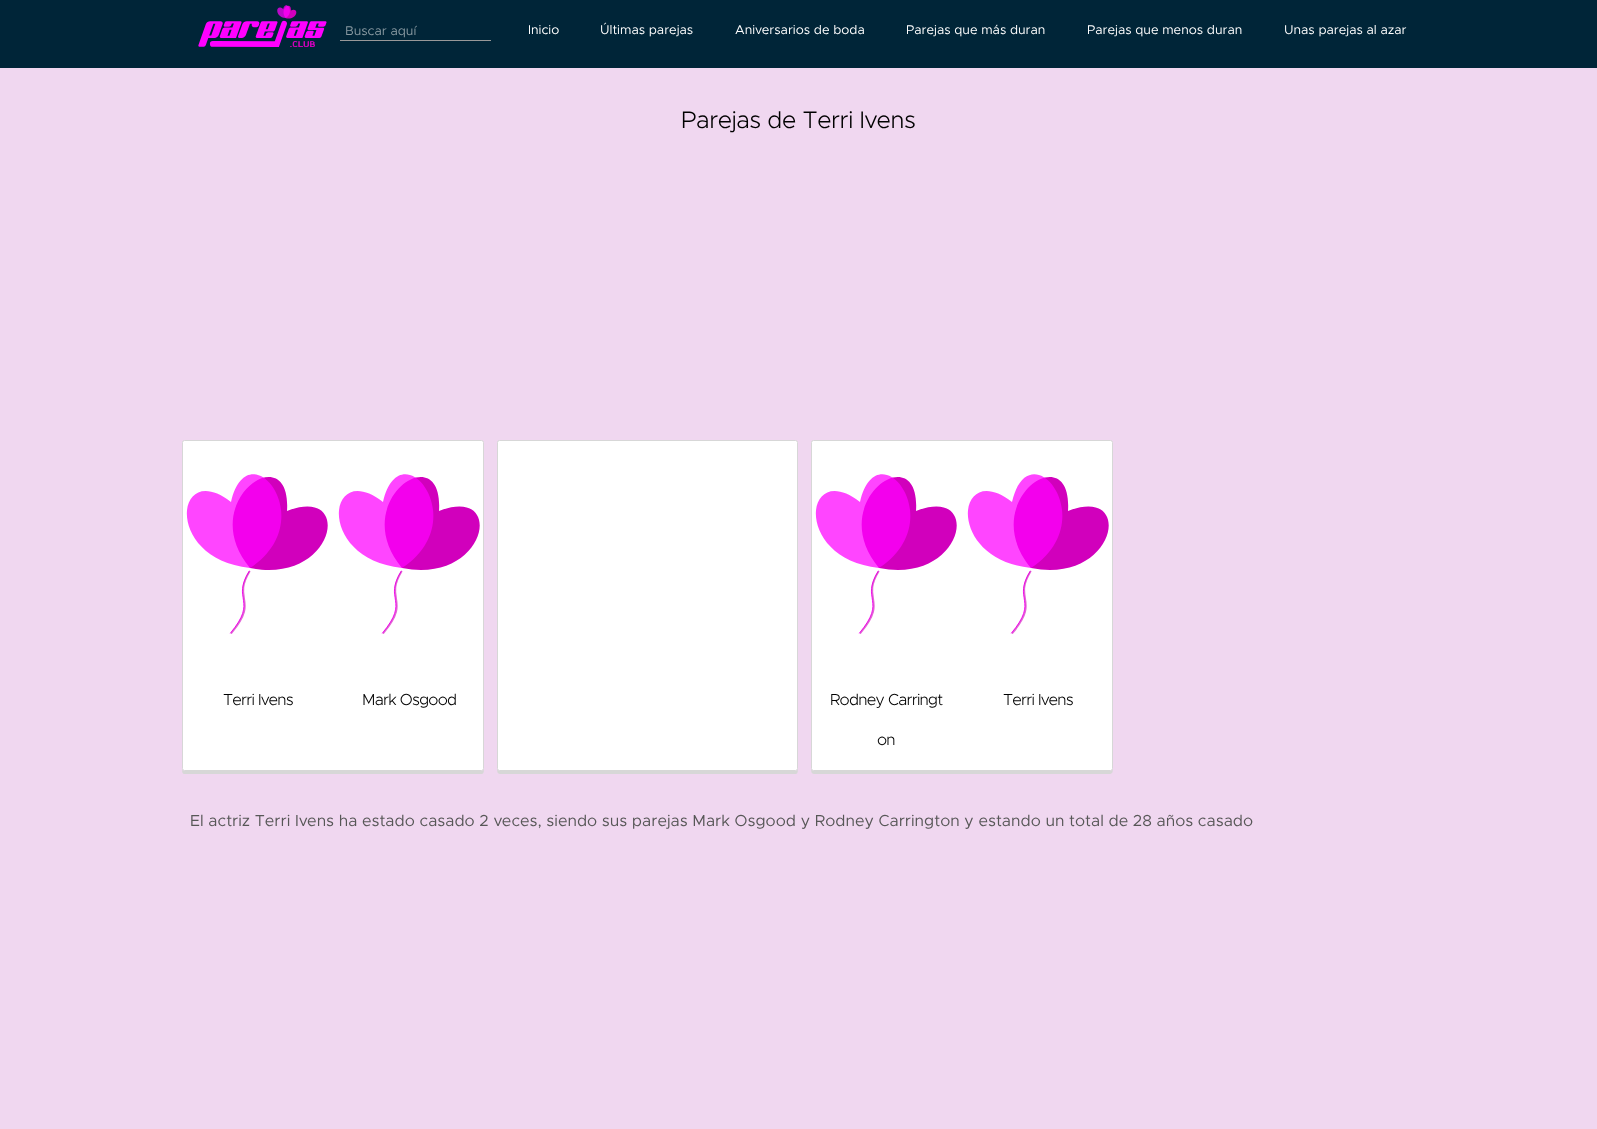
<svg xmlns="http://www.w3.org/2000/svg" width="1597" height="1129" viewBox="0 0 1597 1129">
  <style>
    .t1 { font: 12.75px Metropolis; fill: #8a9ba3; }
    .t2 { font: 12.75px Metropolis; fill: #fff; }
    .t3 { font: 300 24px Metropolis; letter-spacing: -0.4px; fill: #000; }
    .t4 { font: 300 16px Metropolis; letter-spacing: -0.75px; fill: #000; }
    .t5 { font: 16px Metropolis; fill: #575757; }
  </style>
  <rect width="100%" height="100%" fill="#f0d7f0"/>
  <rect x="0" y="0" width="1597" height="68" fill="#002538"/>
  <image x="198" y="5" width="129" height="42" href="images/1.png"/>
  <rect x="340" y="40" width="151" height="1" fill="#999"/>
  <text x="345" y="35" class="t1">Buscar aquí</text>
  <text x="528" y="34" class="t2">Inicio</text>
  <text x="600" y="34" class="t2">Últimas parejas</text>
  <text x="735" y="34" class="t2">Aniversarios de boda</text>
  <text x="906" y="34" class="t2">Parejas que más duran</text>
  <text x="1087" y="34" class="t2">Parejas que menos duran</text>
  <text x="1284" y="34" class="t2">Unas parejas al azar</text>
  <text x="681" y="128" class="t3">Parejas de Terri Ivens</text>
  <path d="M182 768C182 770 182 774 184 774H482C484 774 484 770 484 768C484 770 483 771 482 771H184C183 771 182 770 182 768Z" fill="#d7d7d7"/>
  <rect x="182.5" y="440.5" width="301" height="330" rx="2" fill="#fff" stroke="#d7d7d7"/>
  <path d="M250 568C194 501 292 435 287 511C354 484 336 585 250 568Z" fill="#d100bc" fill-rule="evenodd"/>
  <path d="M250 568C323 520 248 428 231 502C175 458 163 559 250 568Z" fill="#ff00ffba" fill-rule="evenodd"/>
  <path d="M249 571.5C231 600.5 258.5 599.5 230.5 633" fill="none" stroke="#f0f" stroke-width="0.9" stroke-linecap="round"/>
  <path d="M249.5 571.5C232 600.5 259.5 599.5 231.5 633" fill="none" stroke="#d100bc99" stroke-width="1.8" stroke-linecap="round"/>
  <text x="223" y="705" class="t4">Terri Ivens</text>
  <path d="M402 568C346 501 444 435 439 511C506 484 488 585 402 568Z" fill="#d100bc" fill-rule="evenodd"/>
  <path d="M402 568C475 520 400 428 383 502C327 458 315 559 402 568Z" fill="#ff00ffba" fill-rule="evenodd"/>
  <path d="M401 571.5C383 600.5 410.5 599.5 382.5 633" fill="none" stroke="#f0f" stroke-width="0.9" stroke-linecap="round"/>
  <path d="M401.5 571.5C384 600.5 411.5 599.5 383.5 633" fill="none" stroke="#d100bc99" stroke-width="1.8" stroke-linecap="round"/>
  <text x="362" y="705" class="t4">Mark Osgood</text>
  <path d="M497 768C497 770 497 774 500 774H796C798 774 798 770 798 768C798 770 797 771 796 771H500C498 771 497 770 497 768Z" fill="#d7d7d7"/>
  <rect x="497.5" y="440.5" width="300" height="330" rx="2" fill="#fff" stroke="#d7d7d7"/>
  <path d="M811 768C811 770 811 774 814 774H1110C1113 774 1113 770 1113 768C1113 770 1112 771 1110 771H814C812 771 811 770 811 768Z" fill="#d7d7d7"/>
  <rect x="811.5" y="440.5" width="301" height="330" rx="2" fill="#fff" stroke="#d7d7d7"/>
  <path d="M879 568C823 501 921 435 916 511C983 484 965 585 879 568Z" fill="#d100bc" fill-rule="evenodd"/>
  <path d="M879 568C952 520 877 428 860 502C804 458 792 559 879 568Z" fill="#ff00ffba" fill-rule="evenodd"/>
  <path d="M878 571.5C860 600.5 887.5 599.5 859.5 633" fill="none" stroke="#f0f" stroke-width="0.9" stroke-linecap="round"/>
  <path d="M878.5 571.5C861 600.5 888.5 599.5 860.5 633" fill="none" stroke="#d100bc99" stroke-width="1.8" stroke-linecap="round"/>
  <text x="830" y="705" class="t4">Rodney Carringt</text>
  <text x="877" y="745" class="t4">on</text>
  <path d="M1031 568C975 501 1073 435 1068 511C1135 484 1117 585 1031 568Z" fill="#d100bc" fill-rule="evenodd"/>
  <path d="M1031 568C1104 520 1029 428 1012 502C956 458 944 559 1031 568Z" fill="#ff00ffba" fill-rule="evenodd"/>
  <path d="M1030 571.5C1012 600.5 1039.5 599.5 1011.5 633" fill="none" stroke="#f0f" stroke-width="0.9" stroke-linecap="round"/>
  <path d="M1030.5 571.5C1013 600.5 1040.5 599.5 1012.5 633" fill="none" stroke="#d100bc99" stroke-width="1.8" stroke-linecap="round"/>
  <text x="1003" y="705" class="t4">Terri Ivens</text>
  <text x="190" y="826" class="t5">El actriz Terri Ivens ha estado casado 2 veces, siendo sus parejas Mark Osgood y Rodney Carrington y estando un total de 28 años casado</text>
</svg>
